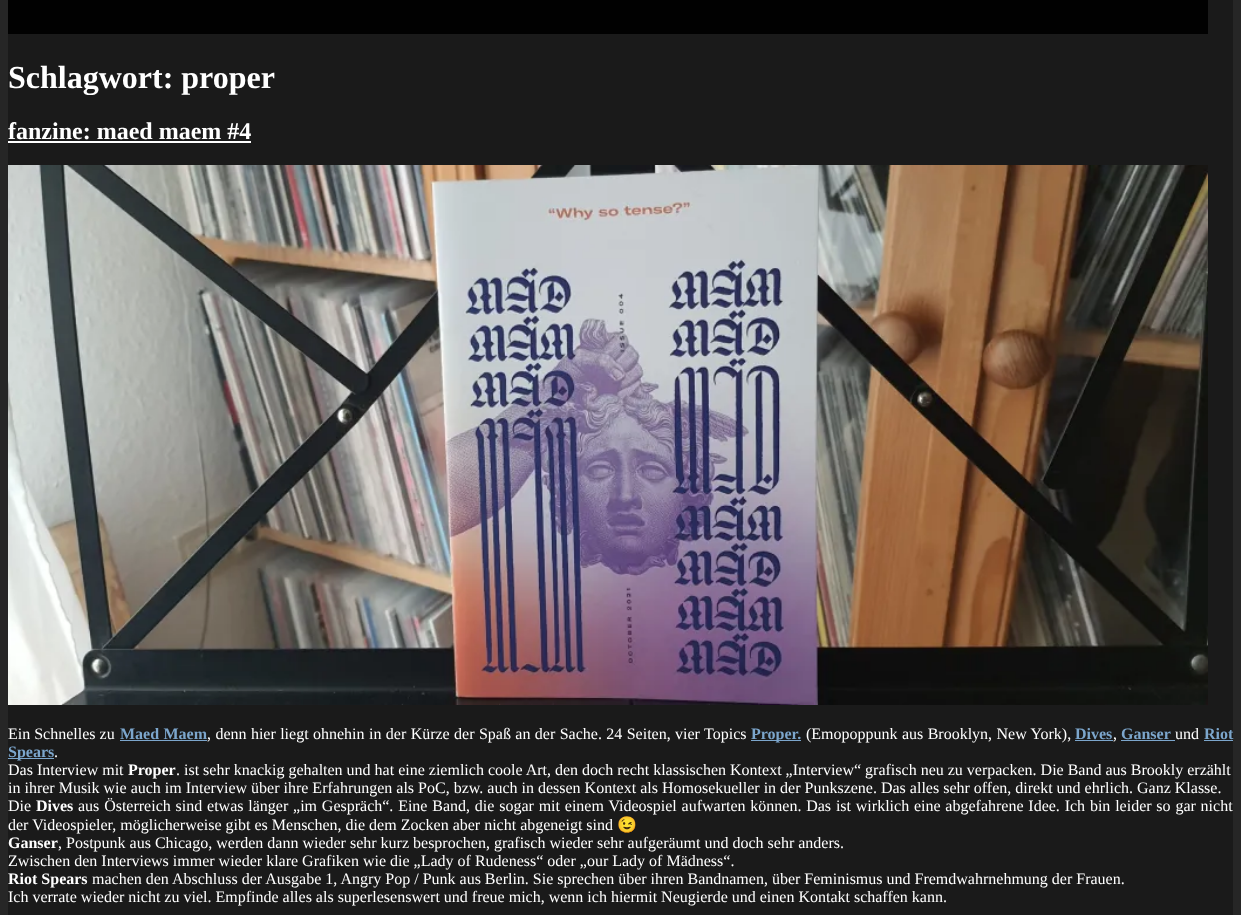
<svg xmlns="http://www.w3.org/2000/svg" width="1241" height="915" viewBox="0 0 1241 915">
  <style>
    .t1 { font: bold 32px Liberation Serif; fill: #fff; }
    .t2 { font: bold 24px Liberation Serif; fill: #fff; }
    .t3 { font: 16px Liberation Serif; fill: #fff; }
    .t4 { font: bold 16px Liberation Serif; fill: #7ca6cc; }
    .t5 { font: bold 16px Liberation Serif; fill: #fff; }
    .t6 { font: 16px Noto Color Emoji; fill: #fff; }
  </style>
  <rect width="100%" height="100%" fill="#262626"/>
  <rect x="8" y="0" width="1225" height="915" fill="#1a1a1a"/>
  <rect x="8" y="0" width="1200" height="34" fill="#010101"/>
  <text x="8" y="88" class="t1">Schlagwort: proper</text>
  <text x="8" y="139" class="t2">fanzine: maed maem #4</text>
  <rect x="8" y="141" width="243" height="2" fill="#fff"/>
  <image x="8" y="165" width="1200" height="540" href="images/1.png"/>
  <text x="8" y="739" class="t3">Ein Schnelles zu</text>
  <text x="120" y="739" word-spacing="0.4" class="t4">Maed Maem</text>
  <text x="207" y="739" word-spacing="0.4" class="t3">, denn hier liegt ohnehin in der Kürze der Spaß an der Sache. 24 Seiten, vier Topics</text>
  <rect x="120" y="740" width="87" height="1" fill="#7ca6cc"/>
  <rect x="751" y="740" width="50" height="1" fill="#7ca6cc"/>
  <text x="751" y="739" class="t4">Proper.</text>
  <text x="806" y="739" word-spacing="0.4" class="t3">(Emopoppunk aus Brooklyn, New York),</text>
  <text x="1075" y="739" class="t4">Dives</text>
  <text x="1113" y="739" class="t3">,</text>
  <rect x="1075" y="740" width="38" height="1" fill="#7ca6cc"/>
  <rect x="1121" y="740" width="54" height="1" fill="#7ca6cc"/>
  <text x="1121" y="739" class="t4">Ganser</text>
  <text x="1175" y="739" class="t3">und</text>
  <text x="1204" y="739" class="t4">Riot</text>
  <rect x="1204" y="740" width="29" height="1" fill="#7ca6cc"/>
  <rect x="8" y="758" width="46" height="1" fill="#7ca6cc"/>
  <text x="8" y="757" class="t4">Spears</text>
  <text x="54" y="757" class="t3">.</text>
  <text x="8" y="775" class="t3">Das Interview mit</text>
  <text x="128" y="775" class="t5">Proper</text>
  <text x="176" y="775" class="t3">. ist sehr knackig gehalten und hat eine ziemlich coole Art, den doch recht klassischen Kontext „Interview“ grafisch neu zu verpacken. Die Band aus Brookly erzählt</text>
  <text x="8" y="793" class="t3">in ihrer Musik wie auch im Interview über ihre Erfahrungen als PoC, bzw. auch in dessen Kontext als Homosekueller in der Punkszene. Das alles sehr offen, direkt und ehrlich. Ganz Klasse.</text>
  <text x="8" y="811" class="t3">Die</text>
  <text x="36" y="811" class="t5">Dives</text>
  <text x="78" y="811" word-spacing="0.8" class="t3">aus Österreich sind etwas länger „im Gespräch“. Eine Band, die sogar mit einem Videospiel aufwarten können. Das ist wirklich eine abgefahrene Idee. Ich bin leider so gar nicht</text>
  <text x="8" y="830" class="t3">der Videospieler, möglicherweise gibt es Menschen, die dem Zocken aber nicht abgeneigt sind</text>
  <text x="617" y="830" class="t6">😉</text>
  <text x="8" y="848" class="t5">Ganser</text>
  <text x="58" y="848" class="t3">, Postpunk aus Chicago, werden dann wieder sehr kurz besprochen, grafisch wieder sehr aufgeräumt und doch sehr anders.</text>
  <text x="8" y="866" class="t3">Zwischen den Interviews immer wieder klare Grafiken wie die „Lady of Rudeness“ oder „our Lady of Mädness“.</text>
  <text x="8" y="884" class="t5">Riot Spears</text>
  <text x="92" y="884" class="t3">machen den Abschluss der Ausgabe 1, Angry Pop / Punk aus Berlin. Sie sprechen über ihren Bandnamen, über Feminismus und Fremdwahrnehmung der Frauen.</text>
  <text x="8" y="902" class="t3">Ich verrate wieder nicht zu viel. Empfinde alles als superlesenswert und freue mich, wenn ich hiermit Neugierde und einen Kontakt schaffen kann.</text>
</svg>
